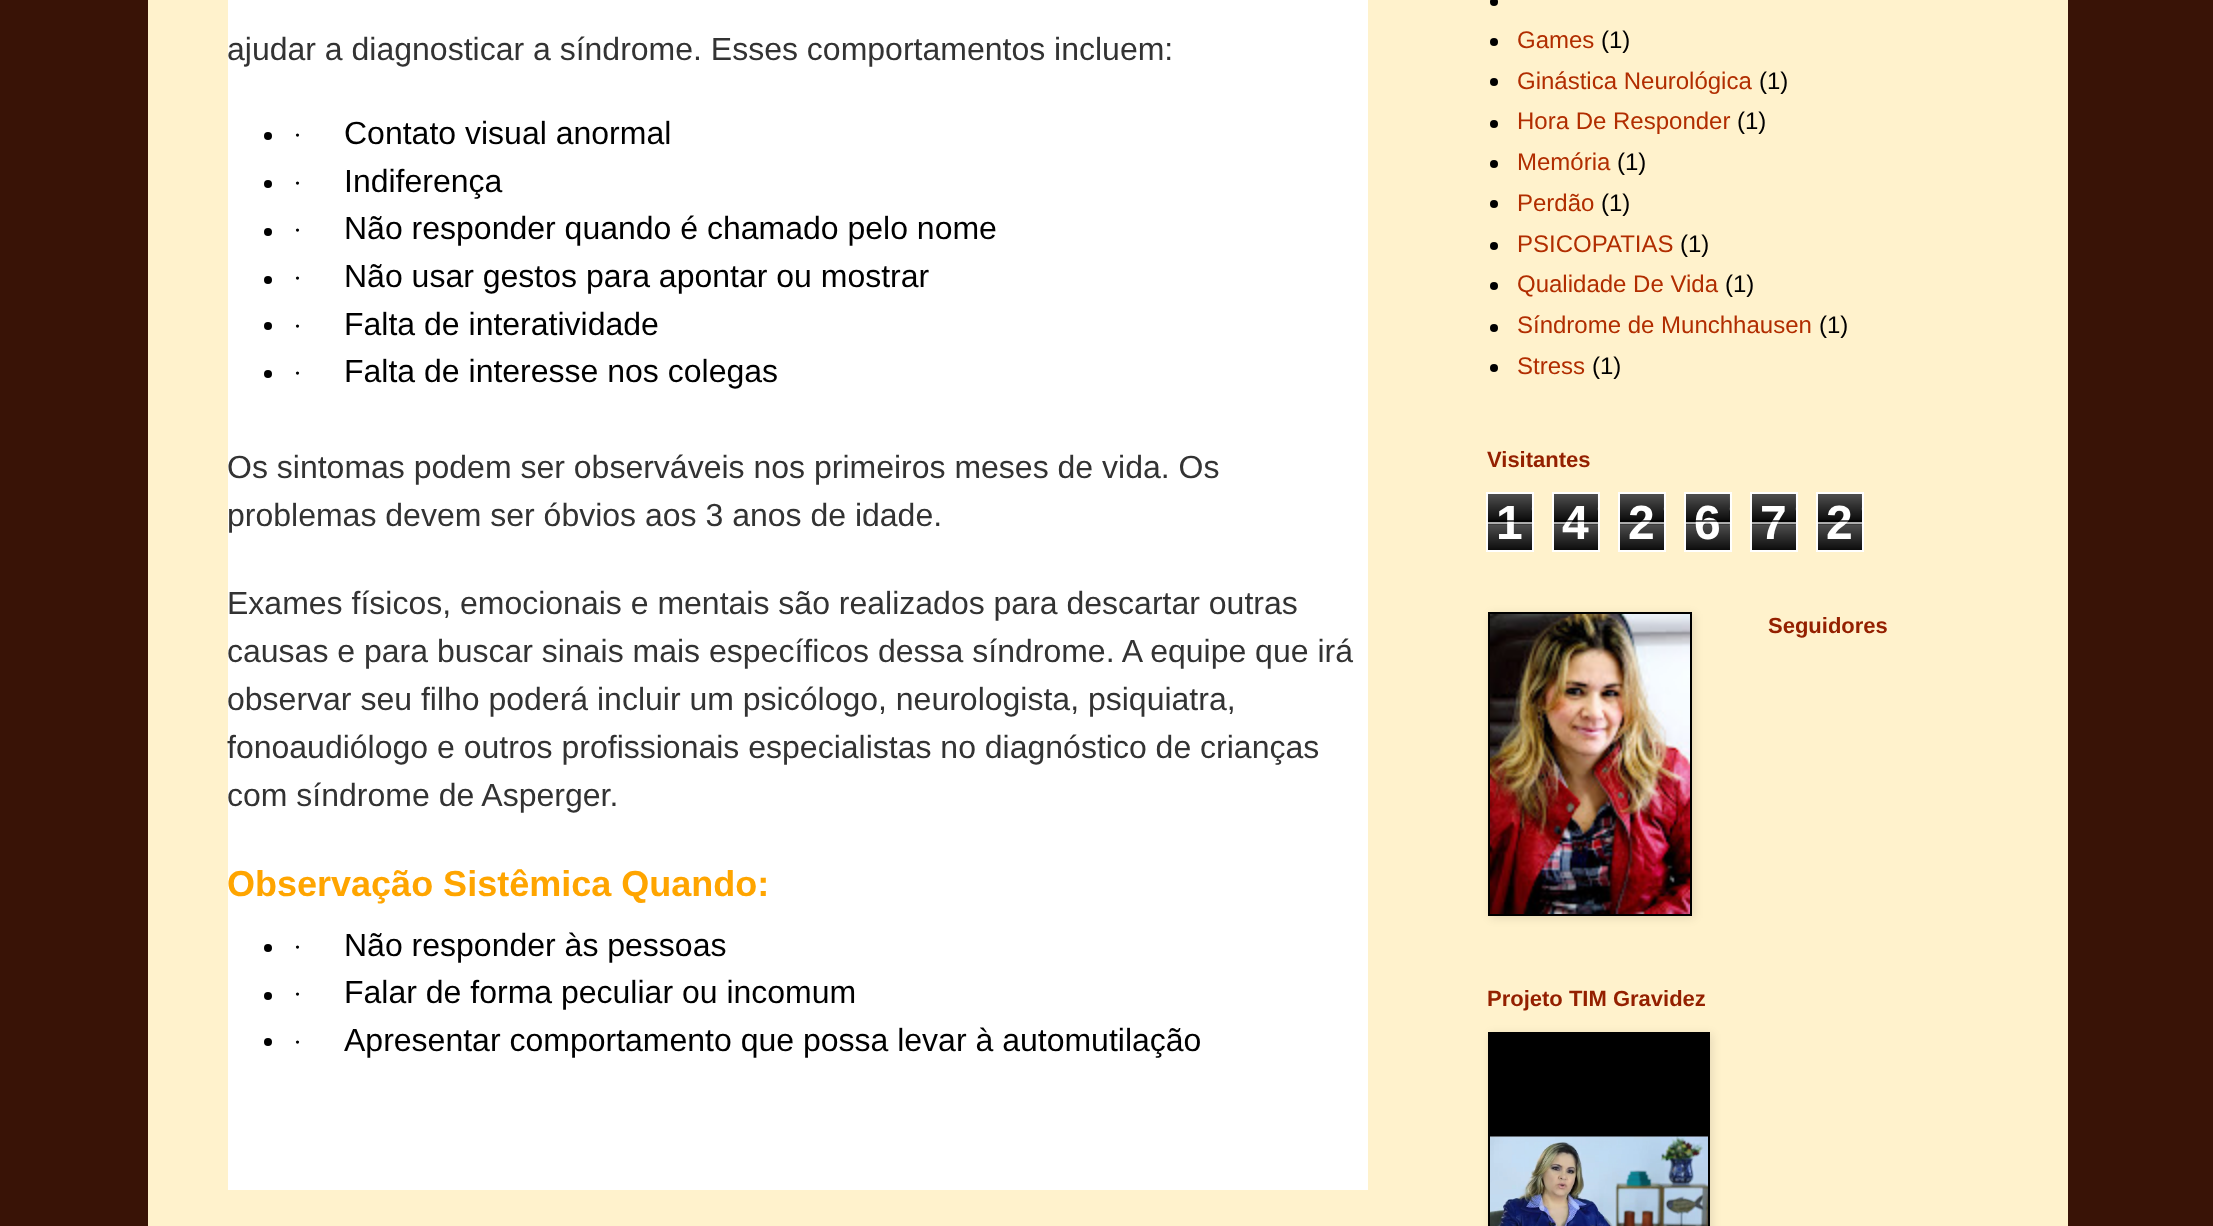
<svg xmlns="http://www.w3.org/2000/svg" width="2213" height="1226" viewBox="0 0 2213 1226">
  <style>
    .t1 { font: 32px Liberation Sans; fill: #333; }
    .t2 { font: 27px Liberation Serif; fill: #000; }
    .t3 { font: 32px Liberation Sans; fill: #000; }
    .t4 { font: bold 36px Liberation Sans; fill: #ffa500; }
    .t5 { font: 24px Liberation Sans; fill: #b12d00; }
    .t6 { font: 24px Liberation Sans; fill: #000; }
    .t7 { font: bold 22px Liberation Sans; fill: #942000; }
    .t8 { font: bold 48px Liberation Sans; fill: #fff; }
  </style>
  <rect width="100%" height="100%" fill="#391306"/>
  <rect x="148" y="0" width="1920" height="1226" fill="#fff2cc"/>
  <rect x="228" y="0" width="1140" height="1190" fill="#fff"/>
  <text x="227" y="60" class="t1">ajudar a diagnosticar a síndrome. Esses comportamentos incluem:</text>
  <circle cx="268" cy="136" r="4" fill="#000"/>
  <text x="293" y="144" class="t2">·</text>
  <text x="344" y="144" class="t3">Contato visual anormal</text>
  <circle cx="268" cy="184" r="4" fill="#000"/>
  <text x="293" y="192" class="t2">·</text>
  <text x="344" y="192" class="t3">Indiferença</text>
  <circle cx="268" cy="232" r="4" fill="#000"/>
  <text x="293" y="239" class="t2">·</text>
  <text x="344" y="239" class="t3">Não responder quando é chamado pelo nome</text>
  <circle cx="268" cy="280" r="4" fill="#000"/>
  <text x="293" y="287" class="t2">·</text>
  <text x="344" y="287" class="t3">Não usar gestos para apontar ou mostrar</text>
  <circle cx="268" cy="326" r="4" fill="#000"/>
  <text x="293" y="335" class="t2">·</text>
  <text x="344" y="335" class="t3">Falta de interatividade</text>
  <circle cx="268" cy="374" r="4" fill="#000"/>
  <text x="293" y="382" class="t2">·</text>
  <text x="344" y="382" class="t3">Falta de interesse nos colegas</text>
  <text x="227" y="478" class="t1">Os sintomas podem ser observáveis nos primeiros meses de vida. Os</text>
  <text x="227" y="526" class="t1">problemas devem ser óbvios aos 3 anos de idade.</text>
  <text x="227" y="614" class="t1">Exames físicos, emocionais e mentais são realizados para descartar outras</text>
  <text x="227" y="662" class="t1">causas e para buscar sinais mais específicos dessa síndrome. A equipe que irá</text>
  <text x="227" y="710" class="t1">observar seu filho poderá incluir um psicólogo, neurologista, psiquiatra,</text>
  <text x="227" y="758" class="t1">fonoaudiólogo e outros profissionais especialistas no diagnóstico de crianças</text>
  <text x="227" y="806" class="t1">com síndrome de Asperger.</text>
  <text x="227" y="896" class="t4">Observação Sistêmica Quando:</text>
  <circle cx="268" cy="948" r="4" fill="#000"/>
  <text x="293" y="956" class="t2">·</text>
  <text x="344" y="956" class="t3">Não responder às pessoas</text>
  <circle cx="268" cy="996" r="4" fill="#000"/>
  <text x="293" y="1003" class="t2">·</text>
  <text x="344" y="1003" class="t3">Falar de forma peculiar ou incomum</text>
  <circle cx="268" cy="1042" r="4" fill="#000"/>
  <text x="293" y="1051" class="t2">·</text>
  <text x="344" y="1051" class="t3">Apresentar comportamento que possa levar à automutilação</text>
  <circle cx="1494" cy="2" r="4" fill="#000"/>
  <circle cx="1494" cy="42" r="4" fill="#000"/>
  <text x="1517" y="48" class="t5">Games</text>
  <text x="1601" y="48" class="t6">(1)</text>
  <circle cx="1494" cy="82" r="4" fill="#000"/>
  <text x="1517" y="89" class="t5">Ginástica Neurológica</text>
  <text x="1759" y="89" class="t6">(1)</text>
  <circle cx="1494" cy="124" r="4" fill="#000"/>
  <text x="1517" y="129" class="t5">Hora De Responder</text>
  <text x="1737" y="129" class="t6">(1)</text>
  <circle cx="1494" cy="164" r="4" fill="#000"/>
  <text x="1517" y="170" class="t5">Memória</text>
  <text x="1617" y="170" class="t6">(1)</text>
  <circle cx="1494" cy="204" r="4" fill="#000"/>
  <text x="1517" y="211" class="t5">Perdão</text>
  <text x="1601" y="211" class="t6">(1)</text>
  <circle cx="1494" cy="246" r="4" fill="#000"/>
  <text x="1517" y="252" class="t5">PSICOPATIAS</text>
  <text x="1680" y="252" class="t6">(1)</text>
  <circle cx="1494" cy="286" r="4" fill="#000"/>
  <text x="1517" y="292" class="t5">Qualidade De Vida</text>
  <text x="1725" y="292" class="t6">(1)</text>
  <circle cx="1494" cy="328" r="4" fill="#000"/>
  <text x="1517" y="333" class="t5">Síndrome de Munchhausen</text>
  <text x="1819" y="333" class="t6">(1)</text>
  <circle cx="1494" cy="368" r="4" fill="#000"/>
  <text x="1517" y="374" class="t5">Stress</text>
  <text x="1592" y="374" class="t6">(1)</text>
  <text x="1487" y="467" class="t7">Visitantes</text>
  <image x="1488" y="494" width="44" height="56" href="images/1.png"/>
  <rect x="1487" y="493" width="46" height="58" fill="none" stroke="#fff" stroke-width="2"/>
  <text x="1496" y="539" class="t8">1</text>
  <rect x="1488" y="520" width="44" height="2" fill="#000000a6"/>
  <rect x="1488" y="522" width="44" height="2" fill="#ffffffa6"/>
  <image x="1554" y="494" width="44" height="56" href="images/1.png"/>
  <rect x="1553" y="493" width="46" height="58" fill="none" stroke="#fff" stroke-width="2"/>
  <text x="1562" y="539" class="t8">4</text>
  <rect x="1554" y="520" width="44" height="2" fill="#000000a6"/>
  <rect x="1554" y="522" width="44" height="2" fill="#ffffffa6"/>
  <image x="1620" y="494" width="44" height="56" href="images/1.png"/>
  <rect x="1619" y="493" width="46" height="58" fill="none" stroke="#fff" stroke-width="2"/>
  <text x="1628" y="539" class="t8">2</text>
  <rect x="1620" y="520" width="44" height="2" fill="#000000a6"/>
  <rect x="1620" y="522" width="44" height="2" fill="#ffffffa6"/>
  <image x="1686" y="494" width="44" height="56" href="images/1.png"/>
  <rect x="1685" y="493" width="46" height="58" fill="none" stroke="#fff" stroke-width="2"/>
  <text x="1694" y="539" class="t8">6</text>
  <rect x="1686" y="520" width="44" height="2" fill="#000000a6"/>
  <rect x="1686" y="522" width="44" height="2" fill="#ffffffa6"/>
  <image x="1752" y="494" width="44" height="56" href="images/1.png"/>
  <rect x="1751" y="493" width="46" height="58" fill="none" stroke="#fff" stroke-width="2"/>
  <text x="1760" y="539" class="t8">7</text>
  <rect x="1752" y="520" width="44" height="2" fill="#000000a6"/>
  <rect x="1752" y="522" width="44" height="2" fill="#ffffffa6"/>
  <image x="1818" y="494" width="44" height="56" href="images/1.png"/>
  <rect x="1817" y="493" width="46" height="58" fill="none" stroke="#fff" stroke-width="2"/>
  <text x="1826" y="539" class="t8">2</text>
  <rect x="1818" y="520" width="44" height="2" fill="#000000a6"/>
  <rect x="1818" y="522" width="44" height="2" fill="#ffffffa6"/>
  <text x="1768" y="633" class="t7">Seguidores</text>
  <rect x="1490" y="614" width="204" height="304" fill="#0000001a" filter="blur(5px)"/>
  <rect x="1488" y="612" width="204" height="304" fill="#000"/>
  <image x="1490" y="614" width="200" height="300" href="images/2.png"/>
  <text x="1487" y="1006" class="t7">Projeto TIM Gravidez</text>
  <rect x="1490" y="1034" width="222" height="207" fill="#0000001a" filter="blur(5px)"/>
  <rect x="1488" y="1032" width="222" height="194" fill="#000"/>
  <image x="1490" y="1136" width="218" height="90" href="images/3.png"/>
</svg>
